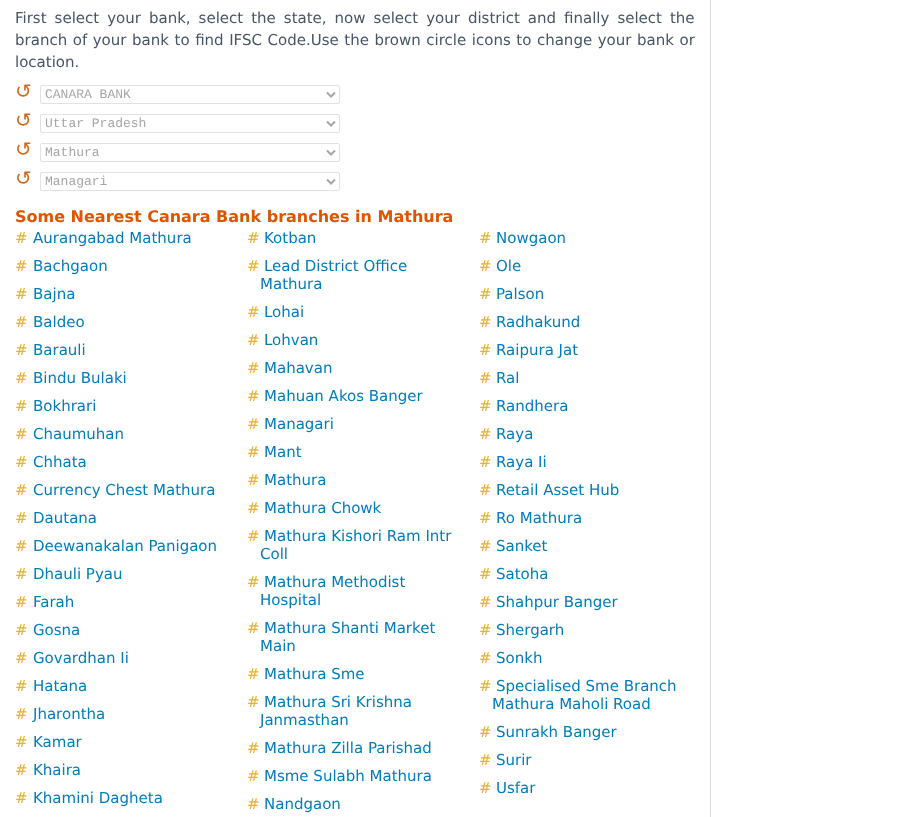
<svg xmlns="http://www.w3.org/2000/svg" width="924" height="817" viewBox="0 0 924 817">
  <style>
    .t1 { font: 15px DejaVu Sans; fill: #475566; }
    .t2 { font: 20px DejaVu Sans; fill: #d2691e; }
    .t3 { font: 13px Liberation Mono; fill: #a6a6a6; }
    .t4 { font: bold 16px DejaVu Sans; fill: #d50; }
    .t5 { font: 15px DejaVu Sans; fill: #e8b02c; }
    .t6 { font: 15px DejaVu Sans; fill: #007dba; }
  </style>
  <rect width="100%" height="100%" fill="#fff"/>
  <rect x="710" y="0" width="1" height="817" fill="#ddd"/>
  <text x="15" y="23" word-spacing="3.25" class="t1">First select your bank, select the state, now select your district and finally select the</text>
  <text x="15" y="45" word-spacing="0.8" class="t1">branch of your bank to find IFSC Code.Use the brown circle icons to change your bank or</text>
  <text x="15" y="67" class="t1">location.</text>
  <text x="15" y="98" class="t2">↺</text>
  <rect x="40.5" y="85.5" width="299" height="18" rx="1.5" fill="none" stroke="#e2e2e2"/>
  <path d="M327 92.5L331 96.5L335 92.5" fill="none" stroke="#a6a6a6" stroke-width="2"/>
  <text x="45" y="98" class="t3">CANARA BANK</text>
  <text x="15" y="127" class="t2">↺</text>
  <rect x="40.5" y="114.5" width="299" height="18" rx="1.5" fill="none" stroke="#e2e2e2"/>
  <path d="M327 121.5L331 125.5L335 121.5" fill="none" stroke="#a6a6a6" stroke-width="2"/>
  <text x="45" y="127" class="t3">Uttar Pradesh</text>
  <text x="15" y="156" class="t2">↺</text>
  <rect x="40.5" y="143.5" width="299" height="18" rx="1.5" fill="none" stroke="#e2e2e2"/>
  <path d="M327 150.5L331 154.5L335 150.5" fill="none" stroke="#a6a6a6" stroke-width="2"/>
  <text x="45" y="156" class="t3">Mathura</text>
  <text x="15" y="185" class="t2">↺</text>
  <rect x="40.5" y="172.5" width="299" height="18" rx="1.5" fill="none" stroke="#e2e2e2"/>
  <path d="M327 179.5L331 183.5L335 179.5" fill="none" stroke="#a6a6a6" stroke-width="2"/>
  <text x="45" y="185" class="t3">Managari</text>
  <text x="15" y="222" class="t4">Some Nearest Canara Bank branches in Mathura</text>
  <text x="15" y="243" class="t5">#</text>
  <text x="33" y="243" class="t6">Aurangabad Mathura</text>
  <text x="247" y="243" class="t5">#</text>
  <text x="264" y="243" class="t6">Kotban</text>
  <text x="479" y="243" class="t5">#</text>
  <text x="496" y="243" class="t6">Nowgaon</text>
  <text x="15" y="271" class="t5">#</text>
  <text x="33" y="271" class="t6">Bachgaon</text>
  <text x="247" y="271" class="t5">#</text>
  <text x="264" y="271" class="t6">Lead District Office</text>
  <text x="260" y="289" class="t6">Mathura</text>
  <text x="479" y="271" class="t5">#</text>
  <text x="496" y="271" class="t6">Ole</text>
  <text x="15" y="299" class="t5">#</text>
  <text x="33" y="299" class="t6">Bajna</text>
  <text x="479" y="299" class="t5">#</text>
  <text x="496" y="299" class="t6">Palson</text>
  <text x="247" y="317" class="t5">#</text>
  <text x="264" y="317" class="t6">Lohai</text>
  <text x="15" y="327" class="t5">#</text>
  <text x="33" y="327" class="t6">Baldeo</text>
  <text x="479" y="327" class="t5">#</text>
  <text x="496" y="327" class="t6">Radhakund</text>
  <text x="247" y="345" class="t5">#</text>
  <text x="264" y="345" class="t6">Lohvan</text>
  <text x="15" y="355" class="t5">#</text>
  <text x="33" y="355" class="t6">Barauli</text>
  <text x="479" y="355" class="t5">#</text>
  <text x="496" y="355" class="t6">Raipura Jat</text>
  <text x="247" y="373" class="t5">#</text>
  <text x="264" y="373" class="t6">Mahavan</text>
  <text x="15" y="383" class="t5">#</text>
  <text x="33" y="383" class="t6">Bindu Bulaki</text>
  <text x="479" y="383" class="t5">#</text>
  <text x="496" y="383" class="t6">Ral</text>
  <text x="15" y="411" class="t5">#</text>
  <text x="33" y="411" class="t6">Bokhrari</text>
  <text x="247" y="401" class="t5">#</text>
  <text x="264" y="401" class="t6">Mahuan Akos Banger</text>
  <text x="479" y="411" class="t5">#</text>
  <text x="496" y="411" class="t6">Randhera</text>
  <text x="15" y="439" class="t5">#</text>
  <text x="33" y="439" class="t6">Chaumuhan</text>
  <text x="247" y="429" class="t5">#</text>
  <text x="264" y="429" class="t6">Managari</text>
  <text x="479" y="439" class="t5">#</text>
  <text x="496" y="439" class="t6">Raya</text>
  <text x="247" y="457" class="t5">#</text>
  <text x="264" y="457" class="t6">Mant</text>
  <text x="15" y="467" class="t5">#</text>
  <text x="33" y="467" class="t6">Chhata</text>
  <text x="479" y="467" class="t5">#</text>
  <text x="496" y="467" class="t6">Raya Ii</text>
  <text x="247" y="485" class="t5">#</text>
  <text x="264" y="485" class="t6">Mathura</text>
  <text x="15" y="495" class="t5">#</text>
  <text x="33" y="495" class="t6">Currency Chest Mathura</text>
  <text x="479" y="495" class="t5">#</text>
  <text x="496" y="495" class="t6">Retail Asset Hub</text>
  <text x="247" y="513" class="t5">#</text>
  <text x="264" y="513" class="t6">Mathura Chowk</text>
  <text x="15" y="523" class="t5">#</text>
  <text x="33" y="523" class="t6">Dautana</text>
  <text x="479" y="523" class="t5">#</text>
  <text x="496" y="523" class="t6">Ro Mathura</text>
  <text x="15" y="551" class="t5">#</text>
  <text x="33" y="551" class="t6">Deewanakalan Panigaon</text>
  <text x="247" y="541" class="t5">#</text>
  <text x="264" y="541" class="t6">Mathura Kishori Ram Intr</text>
  <text x="260" y="559" class="t6">Coll</text>
  <text x="479" y="551" class="t5">#</text>
  <text x="496" y="551" class="t6">Sanket</text>
  <text x="15" y="579" class="t5">#</text>
  <text x="33" y="579" class="t6">Dhauli Pyau</text>
  <text x="479" y="579" class="t5">#</text>
  <text x="496" y="579" class="t6">Satoha</text>
  <text x="15" y="607" class="t5">#</text>
  <text x="33" y="607" class="t6">Farah</text>
  <text x="247" y="587" class="t5">#</text>
  <text x="264" y="587" class="t6">Mathura Methodist</text>
  <text x="260" y="605" class="t6">Hospital</text>
  <text x="479" y="607" class="t5">#</text>
  <text x="496" y="607" class="t6">Shahpur Banger</text>
  <text x="15" y="635" class="t5">#</text>
  <text x="33" y="635" class="t6">Gosna</text>
  <text x="247" y="633" class="t5">#</text>
  <text x="264" y="633" class="t6">Mathura Shanti Market</text>
  <text x="260" y="651" class="t6">Main</text>
  <text x="479" y="635" class="t5">#</text>
  <text x="496" y="635" class="t6">Shergarh</text>
  <text x="15" y="663" class="t5">#</text>
  <text x="33" y="663" class="t6">Govardhan Ii</text>
  <text x="479" y="663" class="t5">#</text>
  <text x="496" y="663" class="t6">Sonkh</text>
  <text x="247" y="679" class="t5">#</text>
  <text x="264" y="679" class="t6">Mathura Sme</text>
  <text x="15" y="691" class="t5">#</text>
  <text x="33" y="691" class="t6">Hatana</text>
  <text x="479" y="691" class="t5">#</text>
  <text x="496" y="691" class="t6">Specialised Sme Branch</text>
  <text x="492" y="709" class="t6">Mathura Maholi Road</text>
  <text x="15" y="719" class="t5">#</text>
  <text x="33" y="719" class="t6">Jharontha</text>
  <text x="247" y="707" class="t5">#</text>
  <text x="264" y="707" class="t6">Mathura Sri Krishna</text>
  <text x="260" y="725" class="t6">Janmasthan</text>
  <text x="15" y="747" class="t5">#</text>
  <text x="33" y="747" class="t6">Kamar</text>
  <text x="247" y="753" class="t5">#</text>
  <text x="264" y="753" class="t6">Mathura Zilla Parishad</text>
  <text x="479" y="737" class="t5">#</text>
  <text x="496" y="737" class="t6">Sunrakh Banger</text>
  <text x="479" y="765" class="t5">#</text>
  <text x="496" y="765" class="t6">Surir</text>
  <text x="15" y="775" class="t5">#</text>
  <text x="33" y="775" class="t6">Khaira</text>
  <text x="247" y="781" class="t5">#</text>
  <text x="264" y="781" class="t6">Msme Sulabh Mathura</text>
  <text x="479" y="793" class="t5">#</text>
  <text x="496" y="793" class="t6">Usfar</text>
  <text x="15" y="803" class="t5">#</text>
  <text x="33" y="803" class="t6">Khamini Dagheta</text>
  <text x="247" y="809" class="t5">#</text>
  <text x="264" y="809" class="t6">Nandgaon</text>
</svg>
